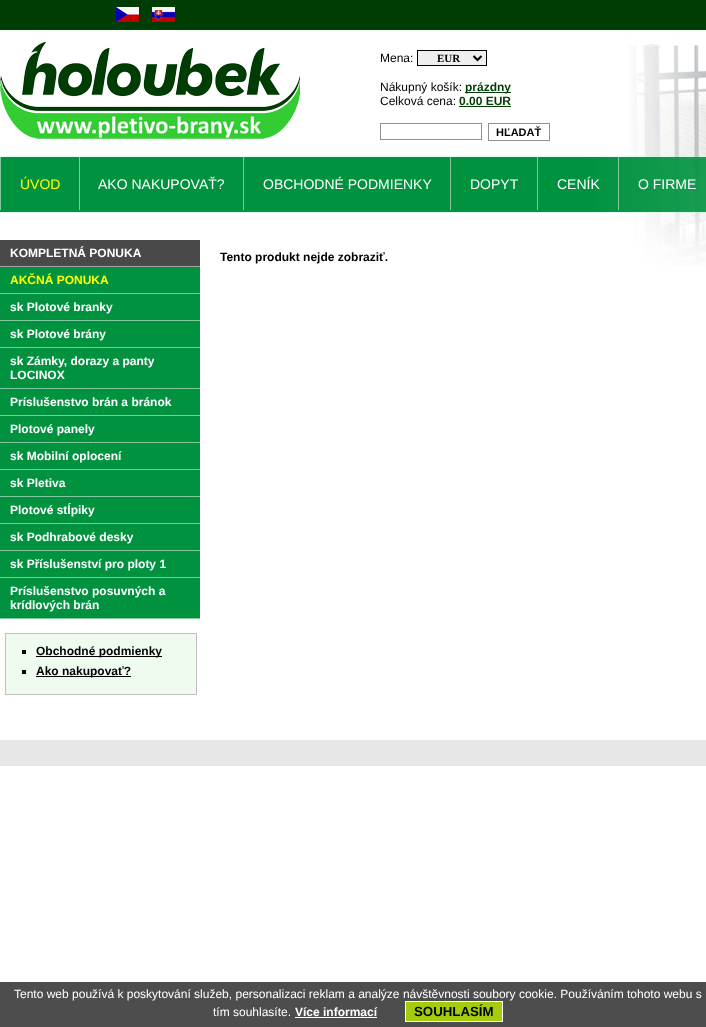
<svg xmlns="http://www.w3.org/2000/svg" width="706" height="1027" viewBox="0 0 706 1027">
  <style>
    .t1 { font: 12px Liberation Sans; fill: #000; }
    .t2 { font: bold 11px Liberation Serif; fill: #000; }
    .t3 { font: bold 12px Liberation Sans; fill: #003d04; }
    .t4 { font: bold 11px Liberation Sans; fill: #000; }
    .t5 { font: 14px Liberation Sans; fill: #ff0; }
    .t6 { font: 14px Liberation Sans; fill: #fff; }
    .t7 { font: bold 12px Liberation Sans; fill: #fff; }
    .t8 { font: bold 12px Liberation Sans; fill: #ff0; }
    .t9 { font: bold 12px Liberation Sans; fill: #000; }
    .t10 { font: 12px Liberation Sans; fill: #fff; }
    .t11 { font: bold 13.25px Liberation Sans; fill: #000; }
  </style>
  <rect width="100%" height="100%" fill="#fff"/>
  <image x="0" y="0" width="706" height="266" href="images/4.png"/>
  <image x="116" y="7" width="23" height="15" href="images/1.png"/>
  <image x="152" y="7" width="23" height="15" href="images/2.png"/>
  <image x="0" y="42" width="300" height="97" href="images/3.png"/>
  <text x="380" y="62" class="t1">Mena:</text>
  <rect x="417.5" y="50.5" width="69" height="15" fill="#efefef" stroke="#000"/>
  <path d="M473.5 56L477.5 60L481.5 56" fill="none" stroke="#000" stroke-width="2"/>
  <text x="437" y="62" class="t2">EUR</text>
  <text x="380" y="91" class="t1">Nákupný košík:</text>
  <rect x="465" y="92" width="46" height="1" fill="#003d04"/>
  <text x="465" y="91" class="t3">prázdny</text>
  <text x="380" y="105" class="t1">Celková cena:</text>
  <text x="459" y="105" class="t3">0.00 EUR</text>
  <rect x="459" y="106" width="52" height="1" fill="#003d04"/>
  <rect x="380.5" y="123.5" width="101" height="16" fill="none" stroke="#909090"/>
  <rect x="488.5" y="123.5" width="61" height="17" fill="none" stroke="#909090"/>
  <text x="496" y="136" class="t4">HĽADAŤ</text>
  <rect x="0" y="157" width="1" height="53" fill="#ffffff80"/>
  <text x="20" y="189" class="t5">ÚVOD</text>
  <rect x="79" y="157" width="1" height="53" fill="#ffffff80"/>
  <text x="98" y="189" class="t6">AKO NAKUPOVAŤ?</text>
  <rect x="243" y="157" width="1" height="53" fill="#ffffff80"/>
  <text x="263" y="189" class="t6">OBCHODNÉ PODMIENKY</text>
  <rect x="450" y="157" width="1" height="53" fill="#ffffff80"/>
  <text x="470" y="189" class="t6">DOPYT</text>
  <rect x="537" y="157" width="1" height="53" fill="#ffffff80"/>
  <text x="557" y="189" class="t6">CENÍK</text>
  <rect x="618" y="157" width="1" height="53" fill="#ffffff80"/>
  <text x="638" y="189" class="t6">O FIRME</text>
  <rect x="0" y="240" width="200" height="26" fill="#494949"/>
  <rect x="0" y="266" width="200" height="1" fill="#a4a4a4"/>
  <text x="10" y="257" class="t7">KOMPLETNÁ PONUKA</text>
  <rect x="0" y="267" width="200" height="26" fill="#00923f"/>
  <rect x="0" y="293" width="200" height="1" fill="#80c99f"/>
  <text x="10" y="284" class="t8">AKČNÁ PONUKA</text>
  <rect x="0" y="294" width="200" height="26" fill="#00923f"/>
  <rect x="0" y="320" width="200" height="1" fill="#80c99f"/>
  <text x="10" y="311" class="t7">sk Plotové branky</text>
  <rect x="0" y="321" width="200" height="26" fill="#00923f"/>
  <rect x="0" y="347" width="200" height="1" fill="#80c99f"/>
  <text x="10" y="338" class="t7">sk Plotové brány</text>
  <rect x="0" y="348" width="200" height="40" fill="#00923f"/>
  <rect x="0" y="388" width="200" height="1" fill="#80c99f"/>
  <text x="10" y="365" class="t7">sk Zámky, dorazy a panty</text>
  <text x="10" y="379" class="t7">LOCINOX</text>
  <rect x="0" y="389" width="200" height="26" fill="#00923f"/>
  <rect x="0" y="415" width="200" height="1" fill="#80c99f"/>
  <text x="10" y="406" class="t7">Príslušenstvo brán a bránok</text>
  <rect x="0" y="416" width="200" height="26" fill="#00923f"/>
  <rect x="0" y="442" width="200" height="1" fill="#80c99f"/>
  <text x="10" y="433" class="t7">Plotové panely</text>
  <rect x="0" y="443" width="200" height="26" fill="#00923f"/>
  <rect x="0" y="469" width="200" height="1" fill="#80c99f"/>
  <text x="10" y="460" class="t7">sk Mobilní oplocení</text>
  <rect x="0" y="470" width="200" height="26" fill="#00923f"/>
  <rect x="0" y="496" width="200" height="1" fill="#80c99f"/>
  <text x="10" y="487" class="t7">sk Pletiva</text>
  <rect x="0" y="497" width="200" height="26" fill="#00923f"/>
  <rect x="0" y="523" width="200" height="1" fill="#80c99f"/>
  <text x="10" y="514" class="t7">Plotové stĺpiky</text>
  <rect x="0" y="524" width="200" height="26" fill="#00923f"/>
  <rect x="0" y="550" width="200" height="1" fill="#80c99f"/>
  <text x="10" y="541" class="t7">sk Podhrabové desky</text>
  <rect x="0" y="551" width="200" height="26" fill="#00923f"/>
  <rect x="0" y="577" width="200" height="1" fill="#80c99f"/>
  <text x="10" y="568" class="t7">sk Příslušenství pro ploty 1</text>
  <rect x="0" y="578" width="200" height="40" fill="#00923f"/>
  <rect x="0" y="618" width="200" height="1" fill="#80c99f"/>
  <text x="10" y="595" class="t7">Príslušenstvo posuvných a</text>
  <text x="10" y="609" class="t7">krídlových brán</text>
  <rect x="5.5" y="633.5" width="191" height="61" fill="#f0fbf0" stroke="#c0c0c0"/>
  <rect x="22" y="650" width="4" height="4" fill="#000"/>
  <rect x="36" y="656" width="126" height="1" fill="#000"/>
  <text x="36" y="655" class="t9">Obchodné podmienky</text>
  <rect x="22" y="670" width="4" height="4" fill="#000"/>
  <rect x="36" y="676" width="95" height="1" fill="#000"/>
  <text x="36" y="675" class="t9">Ako nakupovať?</text>
  <text x="220" y="261" class="t9">Tento produkt nejde zobraziť.</text>
  <rect x="0" y="740" width="706" height="26" fill="#e6e6e6"/>
  <rect x="0" y="982" width="706" height="45" fill="#4d4d4d"/>
  <text x="14" y="998" class="t10">Tento web používá k poskytování služeb, personalizaci reklam a analýze návštěvnosti soubory cookie. Používáním tohoto webu s</text>
  <text x="213" y="1016" class="t10">tím souhlasíte.</text>
  <text x="295" y="1016" class="t7">Více informací</text>
  <rect x="295" y="1017" width="82" height="1" fill="#fff"/>
  <rect x="405.5" y="1001.5" width="97" height="20" fill="#a4cb0c" stroke="#fff"/>
  <text x="414" y="1016" class="t11">SOUHLASÍM</text>
</svg>
